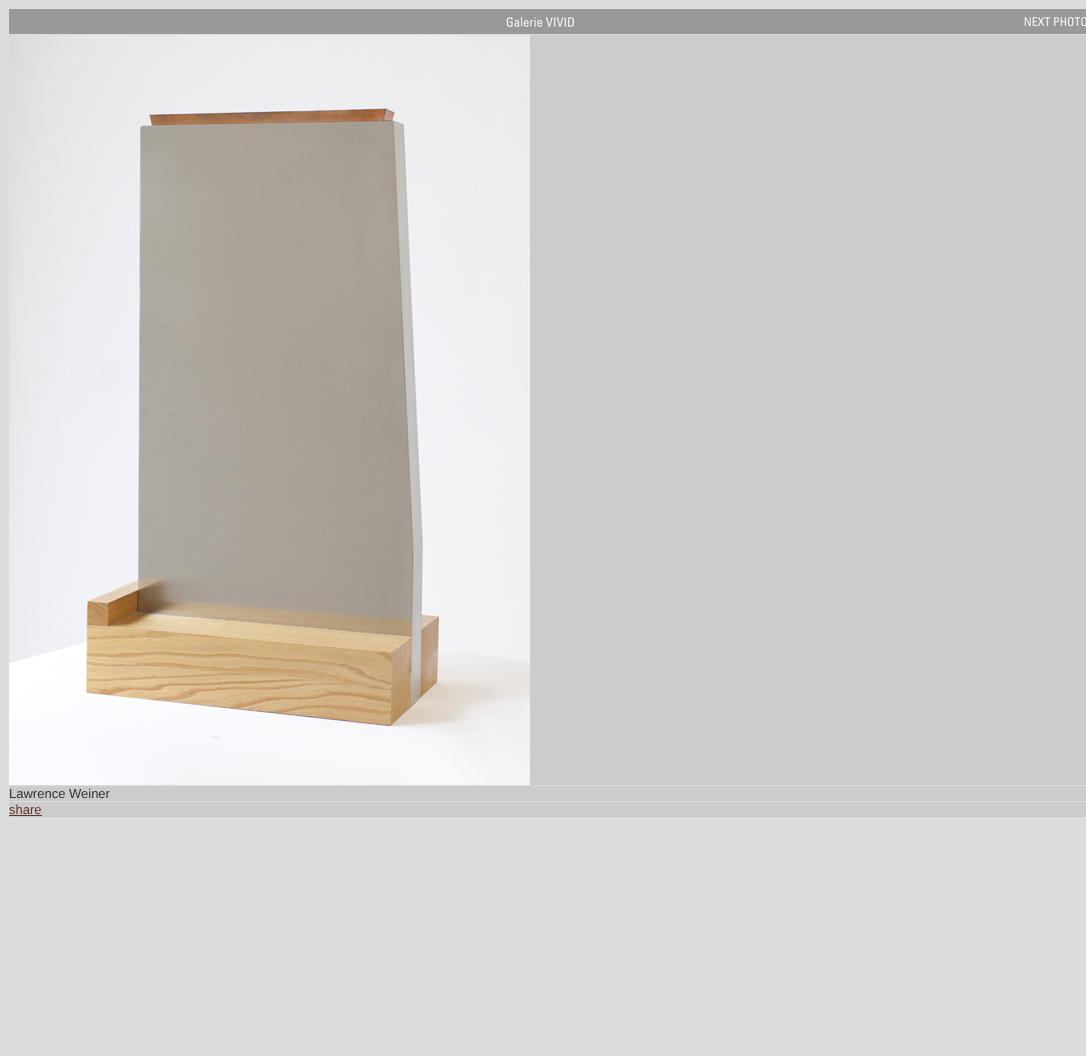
<svg xmlns="http://www.w3.org/2000/svg" width="1086" height="1056" viewBox="0 0 1086 1056">
  <style>
    .t1 { font: 13px Liberation Sans; fill: #333; }
    .t2 { font: 13px Liberation Sans; fill: #633; }
  </style>
  <rect width="100%" height="100%" fill="#ddd"/>
  <rect x="9" y="9" width="1077" height="25" fill="#999"/>
  <image x="506" y="16" width="69" height="12" href="images/1.png"/>
  <image x="1024" y="16" width="62" height="11" href="images/2.png"/>
  <rect x="530" y="35" width="556" height="750" fill="#ccc"/>
  <image x="9" y="35" width="521" height="750" href="images/3.png"/>
  <rect x="9" y="786" width="1077" height="15" fill="#ccc"/>
  <text x="9" y="798" class="t1">Lawrence Weiner</text>
  <rect x="9" y="802" width="1077" height="15" fill="#ccc"/>
  <text x="9" y="814" class="t2">share</text>
  <rect x="9" y="815" width="33" height="1" fill="#633"/>
</svg>
